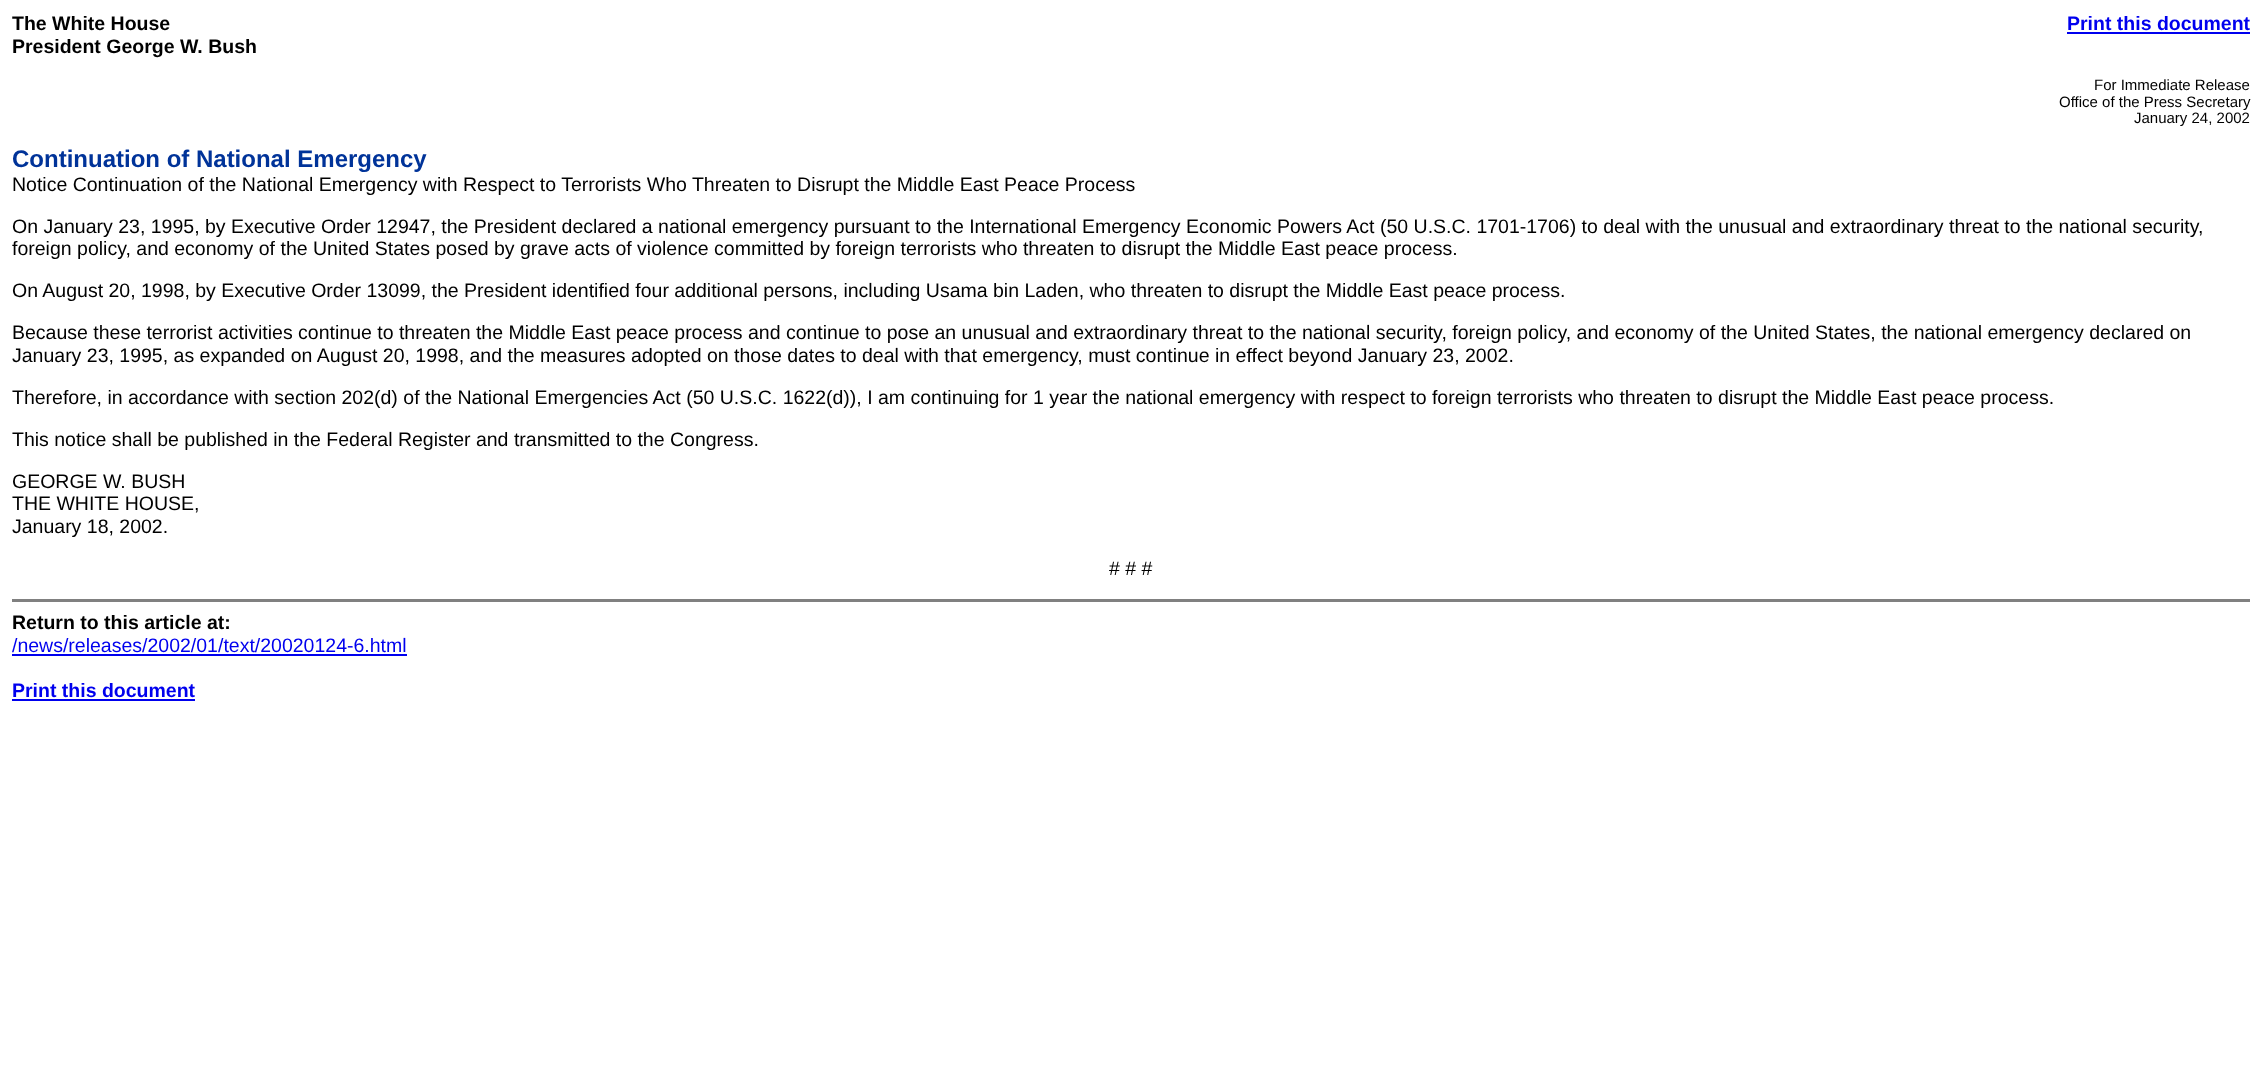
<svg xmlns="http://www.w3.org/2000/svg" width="2262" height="1081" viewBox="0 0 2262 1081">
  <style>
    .t1 { font: bold 19.5px Liberation Sans; fill: #000; }
    .t2 { font: bold 19.5px Liberation Sans; fill: #00e; }
    .t3 { font: 15px Liberation Sans; fill: #000; }
    .t4 { font: bold 24px Liberation Sans; fill: #039; }
    .t5 { font: 19.5px Liberation Sans; fill: #000; }
    .t6 { font: 19.5px Liberation Sans; fill: #00e; }
  </style>
  <rect width="100%" height="100%" fill="#fff"/>
  <text x="12" y="30" class="t1">The White House</text>
  <text x="12" y="53" class="t1">President George W. Bush</text>
  <text x="2067" y="30" class="t2">Print this document</text>
  <rect x="2067" y="32" width="183" height="2" fill="#00e"/>
  <text x="2094" y="90" class="t3">For Immediate Release</text>
  <text x="2059" y="107" class="t3">Office of the Press Secretary</text>
  <text x="2134" y="123" class="t3">January 24, 2002</text>
  <text x="12" y="167" class="t4">Continuation of National Emergency</text>
  <text x="12" y="191" class="t5">Notice Continuation of the National Emergency with Respect to Terrorists Who Threaten to Disrupt the Middle East Peace Process</text>
  <text x="12" y="233" class="t5">On January 23, 1995, by Executive Order 12947, the President declared a national emergency pursuant to the International Emergency Economic Powers Act (50 U.S.C. 1701-1706) to deal with the unusual and extraordinary threat to the national security,</text>
  <text x="12" y="255" class="t5">foreign policy, and economy of the United States posed by grave acts of violence committed by foreign terrorists who threaten to disrupt the Middle East peace process.</text>
  <text x="12" y="297" class="t5">On August 20, 1998, by Executive Order 13099, the President identified four additional persons, including Usama bin Laden, who threaten to disrupt the Middle East peace process.</text>
  <text x="12" y="339" class="t5">Because these terrorist activities continue to threaten the Middle East peace process and continue to pose an unusual and extraordinary threat to the national security, foreign policy, and economy of the United States, the national emergency declared on</text>
  <text x="12" y="362" class="t5">January 23, 1995, as expanded on August 20, 1998, and the measures adopted on those dates to deal with that emergency, must continue in effect beyond January 23, 2002.</text>
  <text x="12" y="404" class="t5">Therefore, in accordance with section 202(d) of the National Emergencies Act (50 U.S.C. 1622(d)), I am continuing for 1 year the national emergency with respect to foreign terrorists who threaten to disrupt the Middle East peace process.</text>
  <text x="12" y="446" class="t5">This notice shall be published in the Federal Register and transmitted to the Congress.</text>
  <text x="12" y="488" class="t5">GEORGE W. BUSH</text>
  <text x="12" y="510" class="t5">THE WHITE HOUSE,</text>
  <text x="12" y="533" class="t5">January 18, 2002.</text>
  <text x="1109" y="575" class="t5"># # #</text>
  <rect x="12" y="599" width="2238" height="3" fill="#808080"/>
  <text x="12" y="629" class="t1">Return to this article at:</text>
  <text x="12" y="652" class="t6">/news/releases/2002/01/text/20020124-6.html</text>
  <rect x="12" y="654" width="395" height="2" fill="#00e"/>
  <text x="12" y="697" class="t2">Print this document</text>
  <rect x="12" y="699" width="183" height="2" fill="#00e"/>
</svg>
